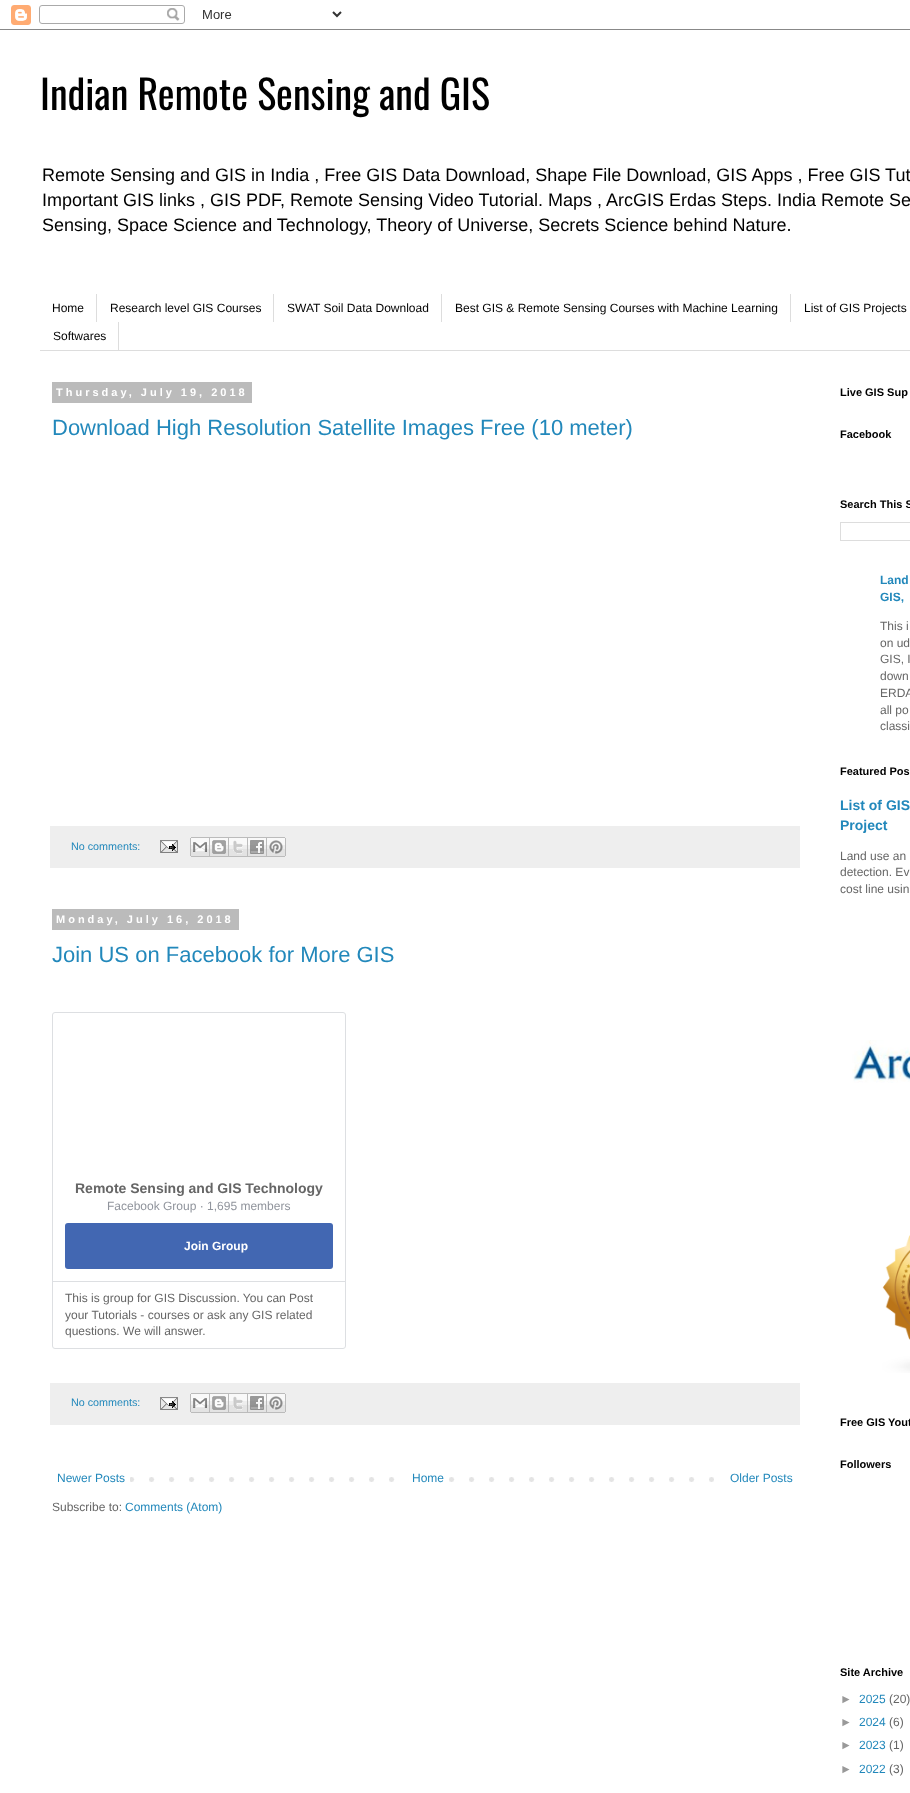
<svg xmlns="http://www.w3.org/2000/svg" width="910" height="1793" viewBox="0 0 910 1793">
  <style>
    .t1 { font: 40px Oswald; fill: #000; }
    .t2 { font: 18px Liberation Sans; fill: #000; }
    .t3 { font: 12px Liberation Sans; fill: #000; }
    .t4 { font: bold 11px Liberation Sans; letter-spacing: 3px; fill: #fff; }
    .t5 { font: 22px Liberation Sans; fill: #28b; }
    .t6 { font: 10.75px Liberation Sans; fill: #28b; }
    .t7 { font: bold 14px Liberation Sans; fill: #666; }
    .t8 { font: 12px Liberation Sans; fill: #90949c; }
    .t9 { font: bold 12px Liberation Sans; fill: #fff; }
    .t10 { font: 12px Liberation Sans; fill: #666; }
    .t11 { font: 12px Liberation Sans; fill: #28b; }
    .t12 { font: bold 11px Liberation Sans; fill: #000; }
    .t13 { font: bold 12px Liberation Sans; fill: #28b; }
    .t14 { font: bold 14px Liberation Sans; fill: #28b; }
    .t15 { font: 12px Liberation Sans; fill: #999; }
  </style>
  <rect width="100%" height="100%" fill="#fff"/>
  <image x="0" y="5" width="910" height="25" href="images/1.png"/>
  <text x="40" y="110" class="t1">Indian Remote Sensing and GIS</text>
  <text x="42" y="181" class="t2">Remote Sensing and GIS in India , Free GIS Data Download, Shape File Download, GIS Apps , Free GIS Tut</text>
  <text x="42" y="206" class="t2">Important GIS links , GIS PDF, Remote Sensing Video Tutorial. Maps , ArcGIS Erdas Steps. India Remote Se</text>
  <text x="42" y="231" class="t2">Sensing, Space Science and Technology, Theory of Universe, Secrets Science behind Nature.</text>
  <rect x="40" y="350" width="870" height="1" fill="#ddd"/>
  <rect x="96" y="294" width="1" height="28" fill="#ddd"/>
  <text x="52" y="312" class="t3">Home</text>
  <rect x="273" y="294" width="1" height="28" fill="#ddd"/>
  <text x="110" y="312" class="t3">Research level GIS Courses</text>
  <rect x="441" y="294" width="1" height="28" fill="#ddd"/>
  <text x="287" y="312" class="t3">SWAT Soil Data Download</text>
  <rect x="790" y="294" width="1" height="28" fill="#ddd"/>
  <text x="455" y="312" class="t3">Best GIS &amp; Remote Sensing Courses with Machine Learning</text>
  <text x="804" y="312" class="t3">List of GIS Projects</text>
  <rect x="118" y="322" width="1" height="28" fill="#ddd"/>
  <text x="53" y="340" class="t3">Softwares</text>
  <rect x="52" y="382" width="200" height="21" fill="#bbb"/>
  <text x="56" y="396" class="t4">Thursday, July 19, 2018</text>
  <text x="52" y="435" class="t5">Download High Resolution Satellite Images Free (10 meter)</text>
  <rect x="50" y="826" width="750" height="42" fill="#eee"/>
  <text x="71" y="850" class="t6">No comments:</text>
  <image x="160" y="840" width="18" height="13" href="images/2.png"/>
  <image x="190" y="837" width="20" height="20" href="images/3.png"/>
  <image x="210" y="837" width="19" height="20" href="images/4.png"/>
  <image x="229" y="837" width="19" height="20" href="images/5.png"/>
  <image x="248" y="837" width="19" height="20" href="images/6.png"/>
  <image x="267" y="837" width="19" height="20" href="images/7.png"/>
  <rect x="52" y="909" width="187" height="21" fill="#bbb"/>
  <text x="56" y="923" class="t4">Monday, July 16, 2018</text>
  <text x="52" y="962" class="t5">Join US on Facebook for More GIS</text>
  <rect x="52.5" y="1012.5" width="293" height="336" rx="2.5" fill="none" stroke="#dddfe2"/>
  <text x="75" y="1193" class="t7">Remote Sensing and GIS Technology</text>
  <text x="107" y="1210" class="t8">Facebook Group · 1,695 members</text>
  <rect x="65" y="1223" width="268" height="46" rx="3" fill="#4267b2"/>
  <text x="184" y="1250" class="t9">Join Group</text>
  <rect x="53" y="1281" width="292" height="1" fill="#dddfe2"/>
  <text x="65" y="1302" class="t10">This is group for GIS Discussion. You can Post</text>
  <text x="65" y="1319" class="t10">your Tutorials - courses or ask any GIS related</text>
  <text x="65" y="1335" class="t10">questions. We will answer.</text>
  <rect x="50" y="1383" width="750" height="42" fill="#eee"/>
  <text x="71" y="1406" class="t6">No comments:</text>
  <image x="160" y="1397" width="18" height="13" href="images/2.png"/>
  <image x="190" y="1393" width="20" height="20" href="images/3.png"/>
  <image x="210" y="1393" width="19" height="20" href="images/4.png"/>
  <image x="229" y="1393" width="19" height="20" href="images/5.png"/>
  <image x="248" y="1393" width="19" height="20" href="images/6.png"/>
  <image x="267" y="1393" width="19" height="20" href="images/7.png"/>
  <image x="130" y="1477" width="584" height="5" href="images/8.png"/>
  <text x="57" y="1482" class="t11">Newer Posts</text>
  <rect x="409" y="1477" width="26" height="5" fill="#fff"/>
  <text x="412" y="1482" class="t11">Home</text>
  <text x="730" y="1482" class="t11">Older Posts</text>
  <text x="52" y="1511" class="t10">Subscribe to:</text>
  <text x="125" y="1511" class="t11">Comments (Atom)</text>
  <text x="840" y="396" class="t12">Live GIS Sup</text>
  <text x="840" y="438" class="t12">Facebook</text>
  <text x="840" y="508" class="t12">Search This S</text>
  <rect x="840.5" y="522.5" width="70" height="18" fill="none" stroke="#ddd"/>
  <text x="880" y="584" class="t13">Land</text>
  <text x="880" y="601" class="t13">GIS,</text>
  <text x="880" y="630" class="t10">This i</text>
  <text x="880" y="647" class="t10">on ud</text>
  <text x="880" y="663" class="t10">GIS, I</text>
  <text x="880" y="680" class="t10">down</text>
  <text x="880" y="697" class="t10">ERDA</text>
  <text x="880" y="714" class="t10">all po</text>
  <text x="880" y="730" class="t10">classi</text>
  <text x="840" y="775" class="t12">Featured Pos</text>
  <text x="840" y="810" class="t14">List of GIS</text>
  <text x="840" y="830" class="t14">Project</text>
  <text x="840" y="860" class="t10">Land use an</text>
  <text x="840" y="876" class="t10">detection. Ev</text>
  <text x="840" y="893" class="t10">cost line usin</text>
  <image x="852" y="1040" width="58" height="43" href="images/9.png"/>
  <image x="882" y="1235" width="28" height="138" href="images/10.png"/>
  <text x="840" y="1426" class="t12">Free GIS Yout</text>
  <text x="840" y="1468" class="t12">Followers</text>
  <text x="840" y="1676" class="t12">Site Archive</text>
  <text x="840" y="1703" class="t15">►</text>
  <text x="859" y="1703" class="t11">2025</text>
  <text x="889" y="1703" class="t10">(20)</text>
  <text x="840" y="1726" class="t15">►</text>
  <text x="859" y="1726" class="t11">2024</text>
  <text x="889" y="1726" class="t10">(6)</text>
  <text x="840" y="1749" class="t15">►</text>
  <text x="859" y="1749" class="t11">2023</text>
  <text x="889" y="1749" class="t10">(1)</text>
  <text x="840" y="1773" class="t15">►</text>
  <text x="859" y="1773" class="t11">2022</text>
  <text x="889" y="1773" class="t10">(3)</text>
</svg>
